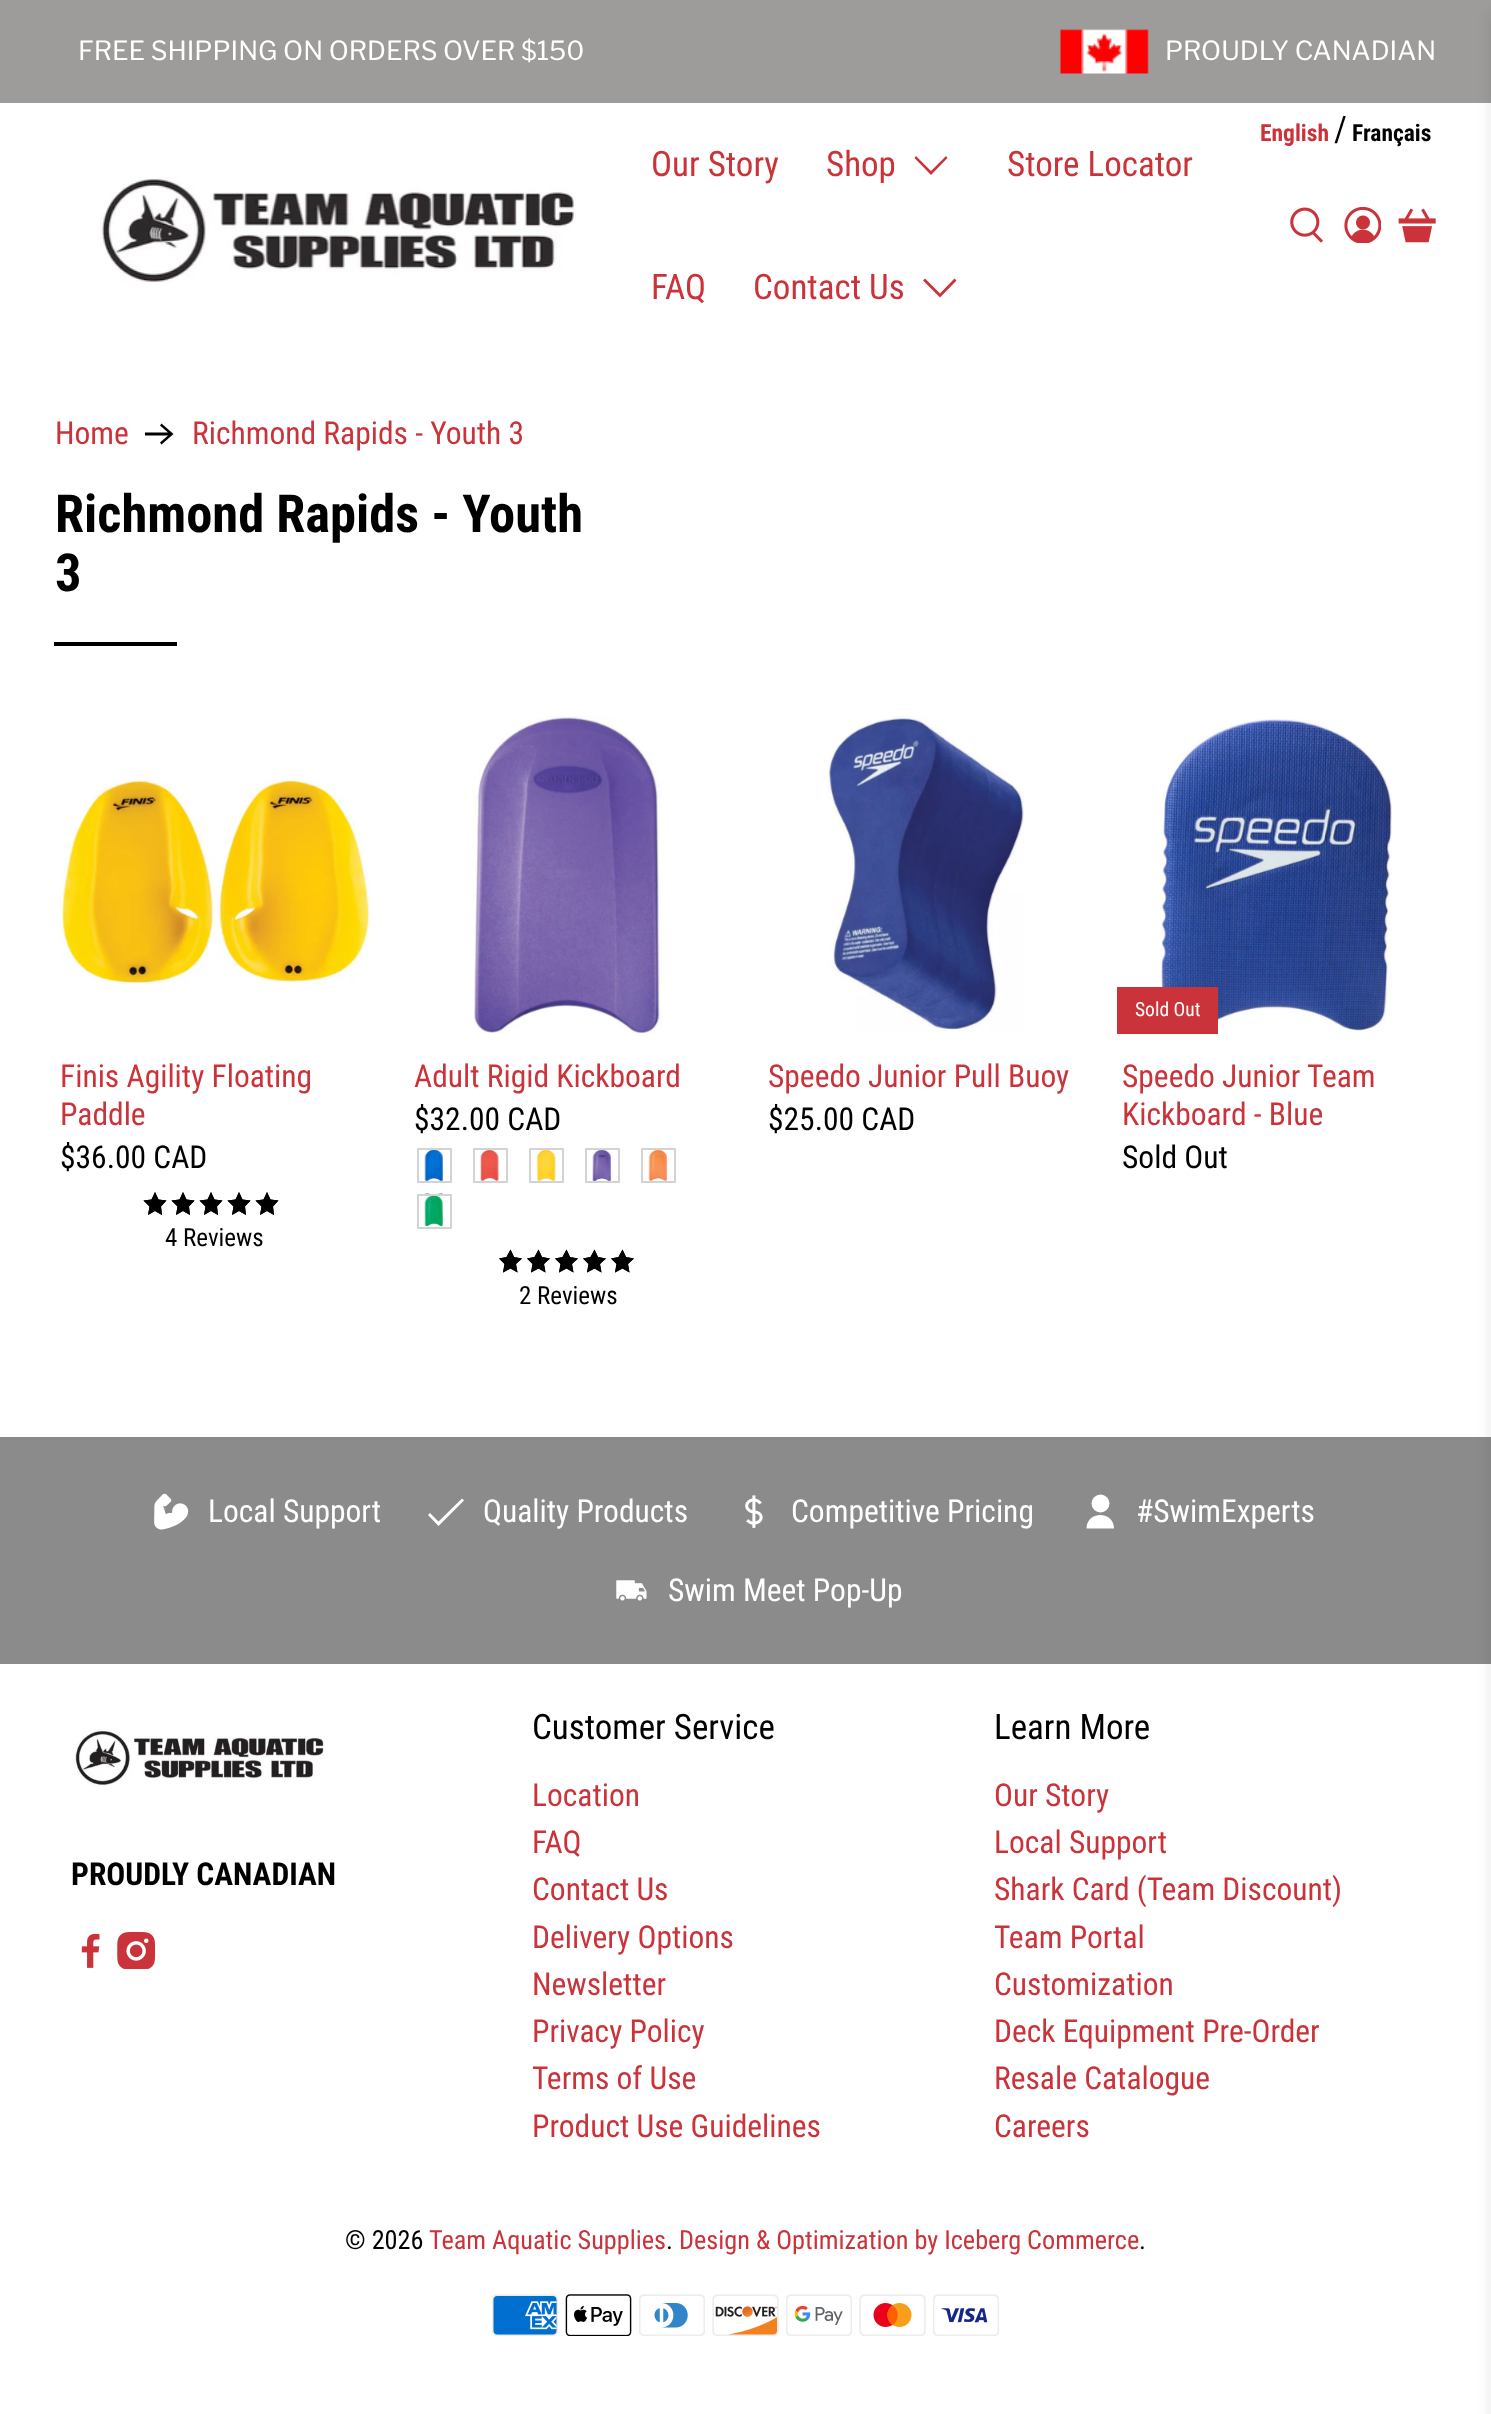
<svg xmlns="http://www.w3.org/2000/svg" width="1491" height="2414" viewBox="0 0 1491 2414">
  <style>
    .t1 { font: 26.25px Libre Franklin; fill: #fff; }
    .t2 { font: bold 23.5px Roboto Condensed; fill: #cb333b; }
    .t3 { font: 35px Roboto Condensed; fill: #000; }
    .t4 { font: bold 23.5px Roboto Condensed; fill: #000; }
    .t5 { font: 35px Roboto Condensed; fill: #cb333b; }
    .t6 { font: 31.5px Roboto Condensed; fill: #cb333b; }
    .t7 { font: bold 52.5px Roboto Condensed; fill: #000; }
    .t8 { font: 31.5px Roboto Condensed; fill: #000; }
    .t9 { font: 25px Roboto Condensed; fill: #000; }
    .t10 { font: 19.5px Roboto Condensed; fill: #fff; }
    .t11 { font: 31.5px Roboto Condensed; fill: #fff; }
    .t12 { font: bold 31.5px Roboto Condensed; fill: #000; }
    .t13 { font: 26.25px Roboto Condensed; fill: #000; }
    .t14 { font: 26.25px Roboto Condensed; fill: #cb333b; }
  </style>
  <defs>
    <clipPath id="clip1"><path d="M155 1192L158.5 1199.5L166.5 1200.5L161 1206.5L162 1215L155 1211L148 1215L149.5 1206.5L143.5 1200.5L151.5 1199.5Z"/></clipPath>
    <clipPath id="clip2"><path d="M183 1192L186.5 1199.5L194.5 1200.5L189 1206.5L190 1215L183 1211L176 1215L177.5 1206.5L171.5 1200.5L179.5 1199.5Z"/></clipPath>
    <clipPath id="clip3"><path d="M211 1192L214.5 1199.5L222.5 1200.5L217 1206.5L218 1215L211 1211L204 1215L205.5 1206.5L199.5 1200.5L207.5 1199.5Z"/></clipPath>
    <clipPath id="clip4"><path d="M239 1192L242.5 1199.5L250.5 1200.5L245 1206.5L246 1215L239 1211L232 1215L233.5 1206.5L227.5 1200.5L235.5 1199.5Z"/></clipPath>
    <clipPath id="clip5"><path d="M267 1192L270.5 1199.5L278.5 1200.5L273 1206.5L274 1215L267 1211L260 1215L261.5 1206.5L255.5 1200.5L263.5 1199.5Z"/></clipPath>
    <clipPath id="clip6"><path d="M510.5 1249.5L514 1257L522 1258.5L516 1264L517.5 1272.5L510.5 1268.5L503 1272.5L504.5 1264L499 1258.5L506.5 1257Z"/></clipPath>
    <clipPath id="clip7"><path d="M538.5 1249.5L542 1257L550 1258.5L544 1264L545.5 1272.5L538.5 1268.5L531 1272.5L532.5 1264L527 1258.5L534.5 1257Z"/></clipPath>
    <clipPath id="clip8"><path d="M566.5 1249.5L570 1257L578 1258.5L572 1264L573.5 1272.5L566.5 1268.5L559 1272.5L560.5 1264L555 1258.5L562.5 1257Z"/></clipPath>
    <clipPath id="clip9"><path d="M594.5 1249.5L598 1257L606 1258.5L600 1264L601.5 1272.5L594.5 1268.5L587 1272.5L588.5 1264L583 1258.5L590.5 1257Z"/></clipPath>
    <clipPath id="clip10"><path d="M622.5 1249.5L626 1257L634 1258.5L628 1264L629.5 1272.5L622.5 1268.5L615 1272.5L616.5 1264L611 1258.5L618.5 1257Z"/></clipPath>
  </defs>
  <rect width="100%" height="100%" fill="#fff"/>
  <rect x="0" y="0" width="1491" height="103" fill="#9e9b9b"/>
  <text x="78" y="60" class="t1">FREE SHIPPING ON ORDERS OVER $150</text>
  <image x="1060" y="29" width="89" height="45" href="images/1.png"/>
  <text x="1165" y="60" class="t1">PROUDLY CANADIAN</text>
  <rect x="0" y="1437" width="1491" height="227" fill="#8b8b8b"/>
  <rect x="1491" y="14" width="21" height="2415" fill="#0a0a0a1a" filter="blur(7px)"/>
  <text x="1260" y="141" class="t2">English</text>
  <text x="1334" y="141" class="t3">/</text>
  <text x="1352" y="141" class="t4">Français</text>
  <image x="100" y="177" width="476" height="106" href="images/2.png"/>
  <text x="651" y="176" class="t5">Our Story</text>
  <text x="826" y="176" class="t5">Shop</text>
  <path d="M931 175L914.5 158L916 156L931 171L946 156L947.5 158Z" fill="#cb333b"/>
  <text x="1007" y="176" class="t5">Store Locator</text>
  <text x="651" y="299" class="t5">FAQ</text>
  <text x="753" y="299" class="t5">Contact Us</text>
  <path d="M940 297.5L923 280.5L925 278.5L940 293.5L954.5 278.5L956.5 280.5Z" fill="#cb333b"/>
  <image x="1290" y="207" width="33" height="36" href="images/3.png"/>
  <image x="1344" y="207" width="37" height="36" href="images/4.png"/>
  <image x="1398" y="208" width="38" height="35" href="images/5.png"/>
  <text x="55" y="444" class="t6">Home</text>
  <path d="M161.5 423.5L160 425.5L168 432.5H145V435.5H168L160 442.5L161.5 444.5L173.5 434Z" fill="#000"/>
  <text x="192" y="444" class="t6">Richmond Rapids - Youth 3</text>
  <text x="55" y="532" class="t7">Richmond Rapids - Youth</text>
  <text x="55" y="591" class="t7">3</text>
  <rect x="54" y="642" width="123" height="4" fill="#000"/>
  <image x="60" y="780" width="310" height="204" href="images/6.png"/>
  <text x="60" y="1087" class="t6">Finis Agility Floating</text>
  <text x="60" y="1125" class="t6">Paddle</text>
  <text x="60" y="1168" class="t8">$36.00 CAD</text>
  <path d="M155 1192L151.5 1199.5L143.5 1200.5L149.5 1206.5L148 1215L155 1211L162 1215L161 1206.5L166.5 1200.5L158.5 1199.5Z" fill="#000"/>
  <g clip-path="url(#clip1)">
    <path d="M155 1192L158.5 1199.5L166.5 1200.5L161 1206.5L162 1215L155 1211L148 1215L149.5 1206.5L143.5 1200.5L151.5 1199.5Z" fill="none" stroke="#000" stroke-width="3.3" stroke-linecap="round" stroke-linejoin="round"/>
  </g>
  <path d="M183 1192L179.5 1199.5L171.5 1200.5L177.5 1206.5L176 1215L183 1211L190 1215L189 1206.5L194.5 1200.5L186.5 1199.5Z" fill="#000"/>
  <g clip-path="url(#clip2)">
    <path d="M183 1192L186.5 1199.5L194.5 1200.5L189 1206.5L190 1215L183 1211L176 1215L177.5 1206.5L171.5 1200.5L179.5 1199.5Z" fill="none" stroke="#000" stroke-width="3.3" stroke-linecap="round" stroke-linejoin="round"/>
  </g>
  <path d="M211 1192L207.5 1199.5L199.5 1200.5L205.5 1206.5L204 1215L211 1211L218 1215L217 1206.5L222.5 1200.5L214.5 1199.5Z" fill="#000"/>
  <g clip-path="url(#clip3)">
    <path d="M211 1192L214.5 1199.5L222.5 1200.5L217 1206.5L218 1215L211 1211L204 1215L205.5 1206.5L199.5 1200.5L207.5 1199.5Z" fill="none" stroke="#000" stroke-width="3.3" stroke-linecap="round" stroke-linejoin="round"/>
  </g>
  <path d="M239 1192L235.5 1199.5L227.5 1200.5L233.5 1206.5L232 1215L239 1211L246 1215L245 1206.5L250.5 1200.5L242.5 1199.5Z" fill="#000"/>
  <g clip-path="url(#clip4)">
    <path d="M239 1192L242.5 1199.5L250.5 1200.5L245 1206.5L246 1215L239 1211L232 1215L233.5 1206.5L227.5 1200.5L235.5 1199.5Z" fill="none" stroke="#000" stroke-width="3.3" stroke-linecap="round" stroke-linejoin="round"/>
  </g>
  <path d="M267 1192L263.5 1199.5L255.5 1200.5L261.5 1206.5L260 1215L267 1211L274 1215L273 1206.5L278.5 1200.5L270.5 1199.5Z" fill="#000"/>
  <g clip-path="url(#clip5)">
    <path d="M267 1192L270.5 1199.5L278.5 1200.5L273 1206.5L274 1215L267 1211L260 1215L261.5 1206.5L255.5 1200.5L263.5 1199.5Z" fill="none" stroke="#000" stroke-width="3.3" stroke-linecap="round" stroke-linejoin="round"/>
  </g>
  <text x="165" y="1246" class="t9">4 Reviews</text>
  <image x="473" y="716" width="189" height="318" href="images/7.png"/>
  <text x="414" y="1087" class="t6">Adult Rigid Kickboard</text>
  <text x="414" y="1130" class="t8">$32.00 CAD</text>
  <image x="424" y="1150" width="20" height="31" href="images/8.png"/>
  <rect x="418" y="1149" width="33" height="33" fill="none" stroke="#d3d3d3" stroke-width="2"/>
  <image x="480" y="1150" width="19" height="31" href="images/9.png"/>
  <rect x="474" y="1149" width="33" height="33" fill="none" stroke="#d3d3d3" stroke-width="2"/>
  <image x="536" y="1150" width="20" height="31" href="images/10.png"/>
  <rect x="530" y="1149" width="33" height="33" fill="none" stroke="#d3d3d3" stroke-width="2"/>
  <image x="592" y="1150" width="20" height="31" href="images/11.png"/>
  <rect x="586" y="1149" width="33" height="33" fill="none" stroke="#d3d3d3" stroke-width="2"/>
  <image x="648" y="1150" width="20" height="31" href="images/12.png"/>
  <rect x="642" y="1149" width="33" height="33" fill="none" stroke="#d3d3d3" stroke-width="2"/>
  <image x="424" y="1193" width="20" height="34" href="images/13.png"/>
  <rect x="418" y="1195" width="33" height="33" fill="none" stroke="#d3d3d3" stroke-width="2"/>
  <path d="M510.5 1249.5L506.5 1257L499 1258.5L504.5 1264L503 1272.5L510.5 1268.5L517.5 1272.5L516 1264L522 1258.5L514 1257Z" fill="#000"/>
  <g clip-path="url(#clip6)">
    <path d="M510.5 1249.5L514 1257L522 1258.5L516 1264L517.5 1272.5L510.5 1268.5L503 1272.5L504.5 1264L499 1258.5L506.5 1257Z" fill="none" stroke="#000" stroke-width="3.3" stroke-linecap="round" stroke-linejoin="round"/>
  </g>
  <path d="M538.5 1249.5L534.5 1257L527 1258.5L532.5 1264L531 1272.5L538.5 1268.5L545.5 1272.5L544 1264L550 1258.5L542 1257Z" fill="#000"/>
  <g clip-path="url(#clip7)">
    <path d="M538.5 1249.5L542 1257L550 1258.5L544 1264L545.5 1272.5L538.5 1268.5L531 1272.5L532.5 1264L527 1258.5L534.5 1257Z" fill="none" stroke="#000" stroke-width="3.3" stroke-linecap="round" stroke-linejoin="round"/>
  </g>
  <path d="M566.5 1249.5L562.5 1257L555 1258.5L560.5 1264L559 1272.5L566.5 1268.5L573.5 1272.5L572 1264L578 1258.5L570 1257Z" fill="#000"/>
  <g clip-path="url(#clip8)">
    <path d="M566.5 1249.5L570 1257L578 1258.5L572 1264L573.5 1272.5L566.5 1268.5L559 1272.5L560.5 1264L555 1258.5L562.5 1257Z" fill="none" stroke="#000" stroke-width="3.3" stroke-linecap="round" stroke-linejoin="round"/>
  </g>
  <path d="M594.5 1249.5L590.5 1257L583 1258.5L588.5 1264L587 1272.5L594.5 1268.5L601.5 1272.5L600 1264L606 1258.5L598 1257Z" fill="#000"/>
  <g clip-path="url(#clip9)">
    <path d="M594.5 1249.5L598 1257L606 1258.5L600 1264L601.5 1272.5L594.5 1268.5L587 1272.5L588.5 1264L583 1258.5L590.5 1257Z" fill="none" stroke="#000" stroke-width="3.3" stroke-linecap="round" stroke-linejoin="round"/>
  </g>
  <path d="M622.5 1249.5L618.5 1257L611 1258.5L616.5 1264L615 1272.5L622.5 1268.5L629.5 1272.5L628 1264L634 1258.5L626 1257Z" fill="#000"/>
  <g clip-path="url(#clip10)">
    <path d="M622.5 1249.5L626 1257L634 1258.5L628 1264L629.5 1272.5L622.5 1268.5L615 1272.5L616.5 1264L611 1258.5L618.5 1257Z" fill="none" stroke="#000" stroke-width="3.3" stroke-linecap="round" stroke-linejoin="round"/>
  </g>
  <text x="519" y="1304" class="t9">2 Reviews</text>
  <image x="827" y="716" width="197" height="316" href="images/14.png"/>
  <text x="768" y="1087" class="t6">Speedo Junior Pull Buoy</text>
  <text x="768" y="1130" class="t8">$25.00 CAD</text>
  <image x="1161" y="716" width="231" height="318" href="images/15.png"/>
  <rect x="1117" y="987" width="101" height="47" fill="#cb333b"/>
  <text x="1135" y="1016" class="t10">Sold Out</text>
  <text x="1122" y="1087" class="t6">Speedo Junior Team</text>
  <text x="1122" y="1125" class="t6">Kickboard - Blue</text>
  <text x="1122" y="1168" class="t8">Sold Out</text>
  <image x="154" y="1493" width="35" height="37" href="images/16.png"/>
  <text x="208" y="1522" class="t11">Local Support</text>
  <path d="M462 1498.5L438.5 1521.5L430 1513L428 1515L438.5 1526L464 1500.5Z" fill="#fff"/>
  <text x="483" y="1522" class="t11">Quality Products</text>
  <image x="745" y="1495" width="18" height="33" href="images/17.png"/>
  <text x="791" y="1522" class="t11">Competitive Pricing</text>
  <circle cx="1100.5" cy="1503.5" r="9" fill="#fff"/>
  <path d="M1114 1528.5C1114 1510.5 1086.5 1510.5 1086.5 1528.5Z" fill="#fff"/>
  <text x="1136" y="1522" class="t11">#SwimExperts</text>
  <image x="616" y="1580" width="31" height="21" href="images/18.png"/>
  <text x="668" y="1601" class="t11">Swim Meet Pop-Up</text>
  <image x="74" y="1729" width="251" height="57" href="images/19.png"/>
  <text x="71" y="1885" class="t12">PROUDLY CANADIAN</text>
  <image x="81" y="1933" width="19" height="35" href="images/20.png"/>
  <image x="117" y="1932" width="39" height="37" href="images/21.png"/>
  <text x="532" y="1739" class="t3">Customer Service</text>
  <text x="532" y="1806" class="t6">Location</text>
  <text x="532" y="1853" class="t6">FAQ</text>
  <text x="532" y="1900" class="t6">Contact Us</text>
  <text x="532" y="1948" class="t6">Delivery Options</text>
  <text x="532" y="1995" class="t6">Newsletter</text>
  <text x="532" y="2042" class="t6">Privacy Policy</text>
  <text x="532" y="2089" class="t6">Terms of Use</text>
  <text x="532" y="2137" class="t6">Product Use Guidelines</text>
  <text x="994" y="1739" class="t3">Learn More</text>
  <text x="994" y="1806" class="t6">Our Story</text>
  <text x="994" y="1853" class="t6">Local Support</text>
  <text x="994" y="1900" class="t6">Shark Card (Team Discount)</text>
  <text x="994" y="1948" class="t6">Team Portal</text>
  <text x="994" y="1995" class="t6">Customization</text>
  <text x="994" y="2042" class="t6">Deck Equipment Pre-Order</text>
  <text x="994" y="2089" class="t6">Resale Catalogue</text>
  <text x="994" y="2137" class="t6">Careers</text>
  <text x="345" y="2249" class="t13">© 2026</text>
  <text x="429" y="2249" class="t14">Team Aquatic Supplies</text>
  <text x="666" y="2249" class="t13">.</text>
  <text x="679" y="2249" class="t14">Design &amp; Optimization by Iceberg Commerce</text>
  <text x="1139" y="2249" class="t13">.</text>
  <image x="492" y="2294" width="66" height="42" href="images/22.png"/>
  <image x="565" y="2294" width="67" height="42" href="images/23.png"/>
  <image x="639" y="2294" width="66" height="42" href="images/24.png"/>
  <image x="712" y="2294" width="67" height="42" href="images/25.png"/>
  <image x="786" y="2294" width="66" height="42" href="images/26.png"/>
  <image x="859" y="2294" width="67" height="42" href="images/27.png"/>
  <image x="933" y="2294" width="66" height="42" href="images/28.png"/>
</svg>
